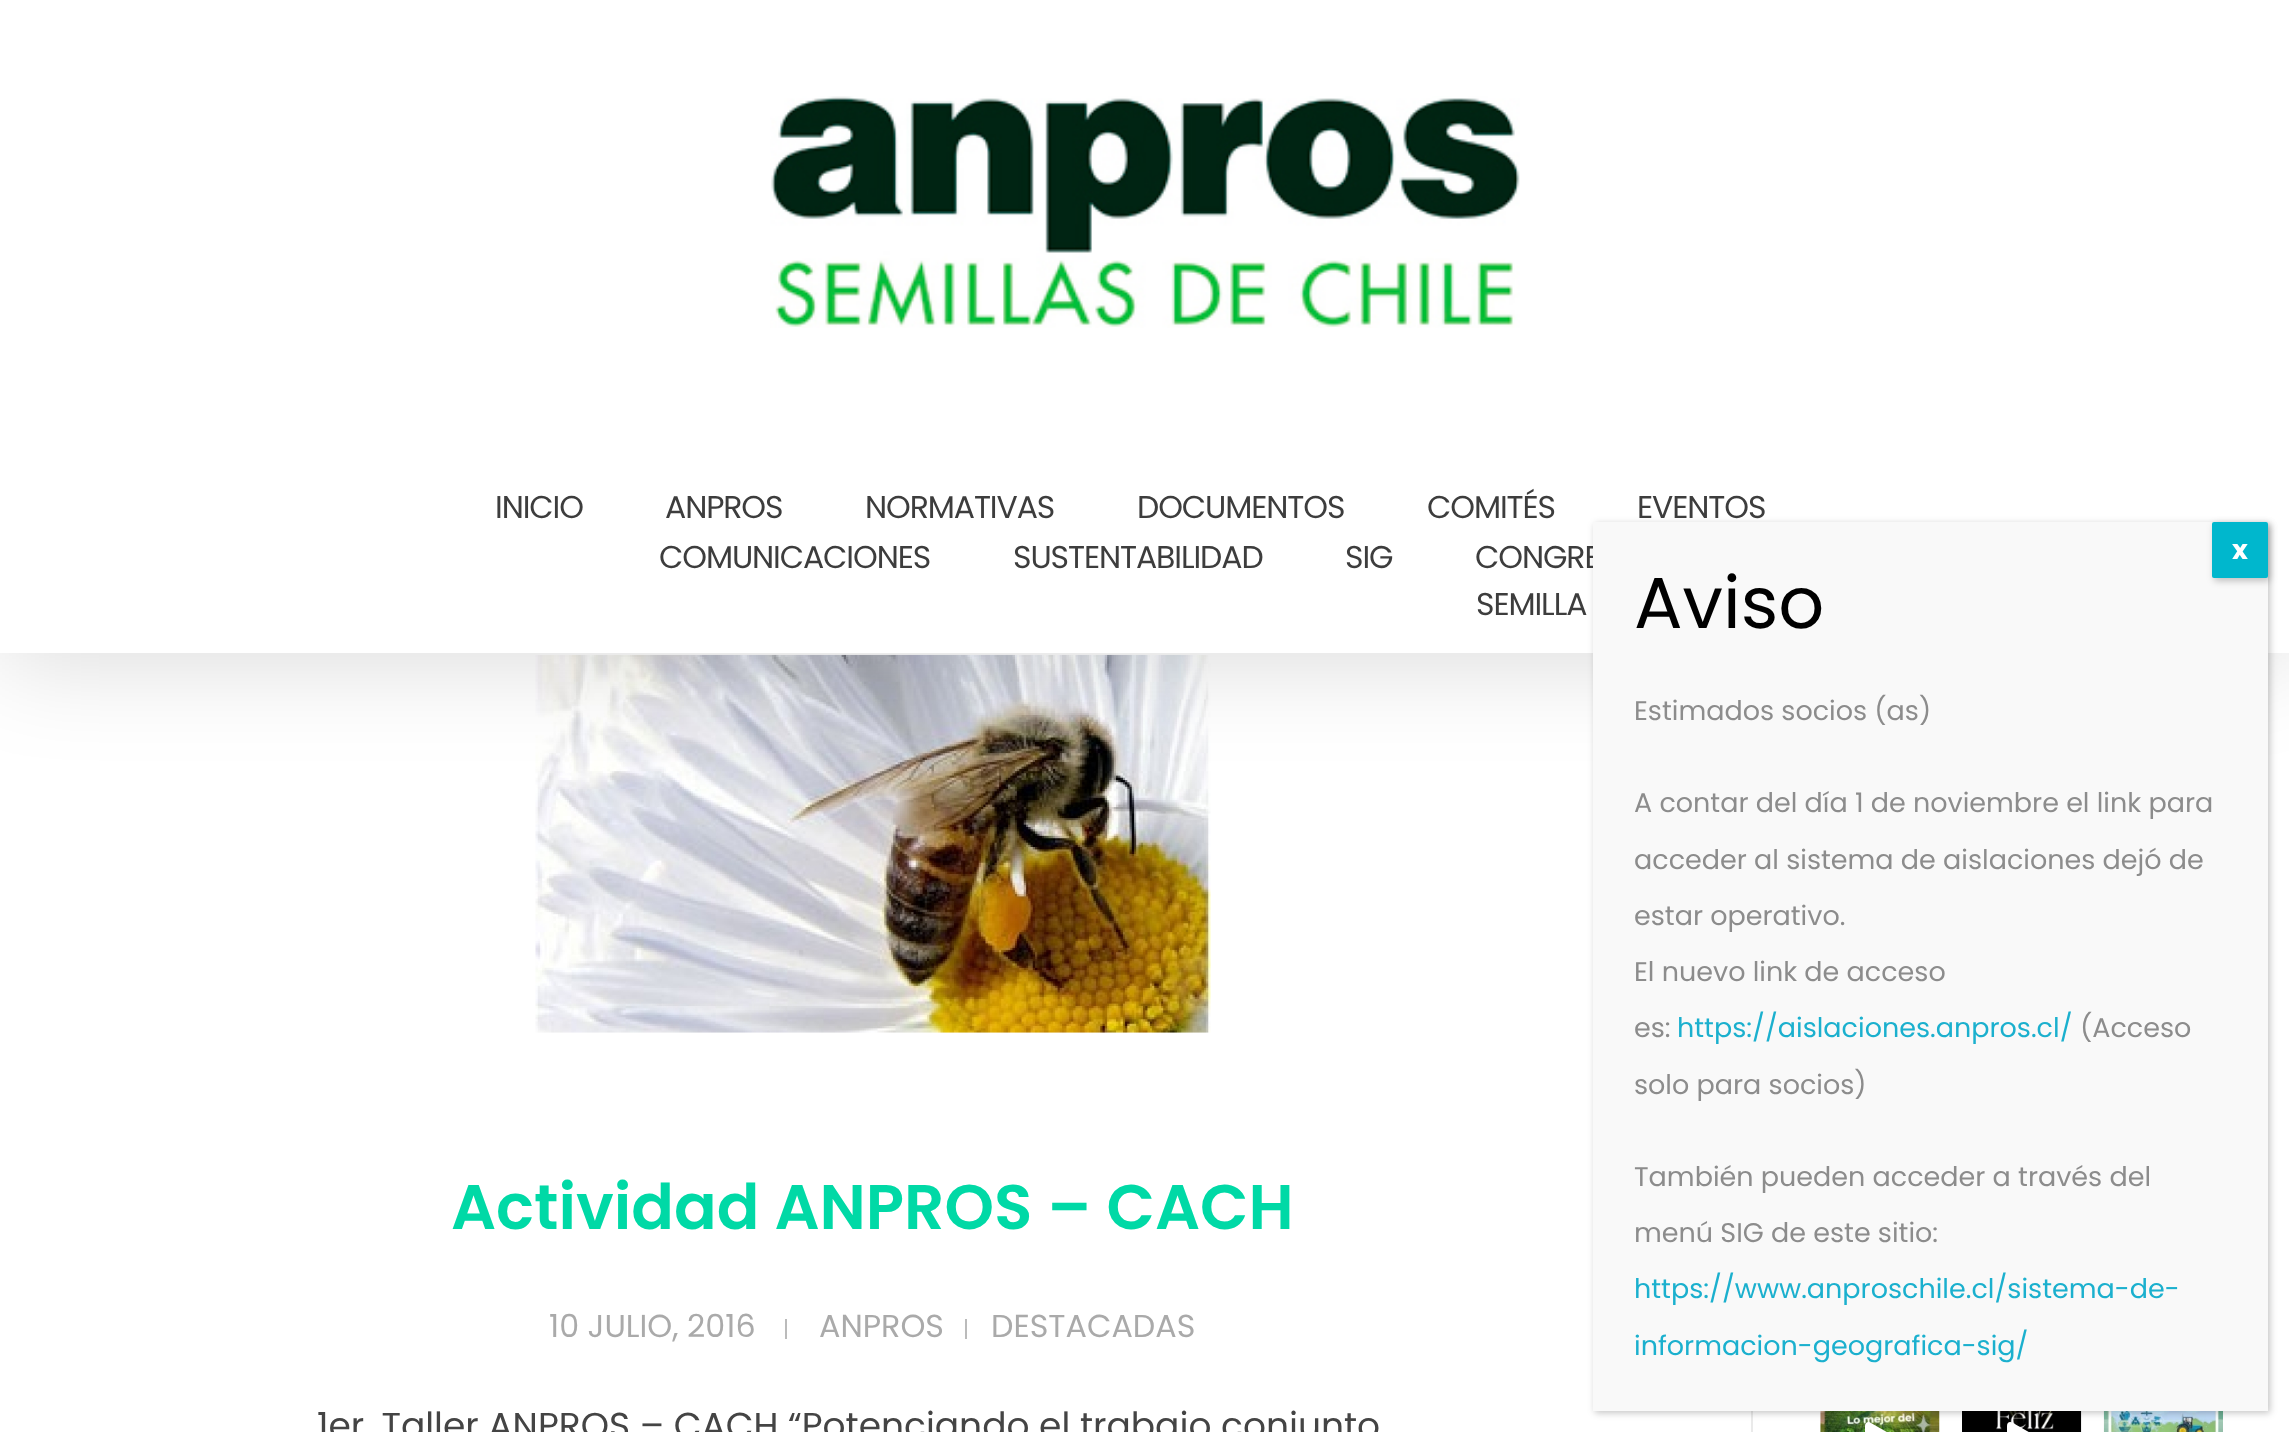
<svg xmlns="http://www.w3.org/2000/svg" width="2289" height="1432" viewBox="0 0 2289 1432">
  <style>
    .t1 { font: 31.5px Poppins; letter-spacing: -1.1px; fill: #3d3d3d; }
    .t2 { font: 600 63px Poppins; fill: #00d9a6; }
    .t3 { font: 31.75px Poppins; fill: #aaa; }
    .t4 { font: 36px Poppins; fill: #444; }
    .t5 { font: bold 27px Poppins; fill: #fff; }
    .t6 { font: 72px Poppins; fill: #000; }
    .t7 { font: 27px Poppins; fill: #8c8c8c; }
    .t8 { font: 27px Poppins; fill: #1bb0ce; }
  </style>
  <rect width="100%" height="100%" fill="#fff"/>
  <image x="535" y="654" width="676" height="379" href="images/2.png"/>
  <rect x="0" y="9" width="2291" height="653" fill="#00000024" filter="blur(49.5px)"/>
  <rect x="0" y="0" width="2289" height="653" fill="#fff"/>
  <image x="770" y="96" width="750" height="232" href="images/1.png"/>
  <text x="495" y="518" class="t1">INICIO</text>
  <text x="665" y="518" class="t1">ANPROS</text>
  <text x="865" y="518" class="t1">NORMATIVAS</text>
  <text x="1137" y="518" class="t1">DOCUMENTOS</text>
  <text x="1427" y="518" class="t1">COMITÉS</text>
  <text x="1637" y="518" class="t1">EVENTOS</text>
  <text x="659" y="568" class="t1">COMUNICACIONES</text>
  <text x="1013" y="568" class="t1">SUSTENTABILIDAD</text>
  <text x="1345" y="568" class="t1">SIG</text>
  <text x="1475" y="568" class="t1">CONGRE</text>
  <text x="1476" y="615" class="t1">SEMILLA</text>
  <text x="451" y="1229" class="t2">Actividad ANPROS – CACH</text>
  <text x="549" y="1337" class="t3">10 JULIO, 2016</text>
  <rect x="785" y="1319" width="2" height="20" fill="#bbb"/>
  <text x="819" y="1337" class="t3">ANPROS</text>
  <rect x="965" y="1319" width="2" height="20" fill="#bbb"/>
  <text x="991" y="1337" class="t3">DESTACADAS</text>
  <text x="317" y="1438" class="t4">1er. Taller ANPROS – CACH “Potenciando el trabajo conjunto</text>
  <rect x="1751" y="1411" width="2" height="21" fill="#eaeaea"/>
  <image x="1820" y="1411" width="120" height="21" href="images/3.png"/>
  <path d="M1899 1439L1871 1423C1869 1421 1865 1422 1865 1426V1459C1865 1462 1868 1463 1871 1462L1899 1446C1901 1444 1901 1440 1899 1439Z" fill="#fff"/>
  <image x="1962" y="1411" width="120" height="21" href="images/4.png"/>
  <path d="M2041 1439L2013 1423C2010 1421 2007 1422 2007 1426V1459C2007 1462 2010 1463 2013 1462L2041 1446C2043 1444 2043 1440 2041 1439Z" fill="#fff"/>
  <image x="2103" y="1411" width="120" height="21" href="images/5.png"/>
  <rect x="1595" y="524" width="675" height="889" fill="#0202023b" filter="blur(3.5px)"/>
  <rect x="1593" y="522" width="675" height="889" fill="#f9f9f9"/>
  <rect x="2214" y="524" width="56" height="57" rx="2" fill="#0202023b" filter="blur(3.5px)"/>
  <rect x="2212" y="522" width="56" height="56" rx="2" fill="#00b7cd"/>
  <text x="2232" y="559" class="t5">x</text>
  <text x="1634" y="628" class="t6">Aviso</text>
  <text x="1634" y="720" class="t7">Estimados socios (as)</text>
  <text x="1634" y="812" class="t7">A contar del día 1 de noviembre el link para</text>
  <text x="1634" y="869" class="t7">acceder al sistema de aislaciones dejó de</text>
  <text x="1634" y="925" class="t7">estar operativo.</text>
  <text x="1634" y="981" class="t7">El nuevo link de acceso</text>
  <text x="1634" y="1037" class="t7">es:</text>
  <text x="1677" y="1037" class="t8">https://aislaciones.anpros.cl/</text>
  <text x="2080" y="1037" class="t7">(Acceso</text>
  <text x="1634" y="1094" class="t7">solo para socios)</text>
  <text x="1634" y="1186" class="t7">También pueden acceder a través del</text>
  <text x="1634" y="1242" class="t7">menú SIG de este sitio:</text>
  <text x="1634" y="1298" class="t8">https://www.anproschile.cl/sistema-de-</text>
  <text x="1634" y="1355" class="t8">informacion-geografica-sig/</text>
</svg>
